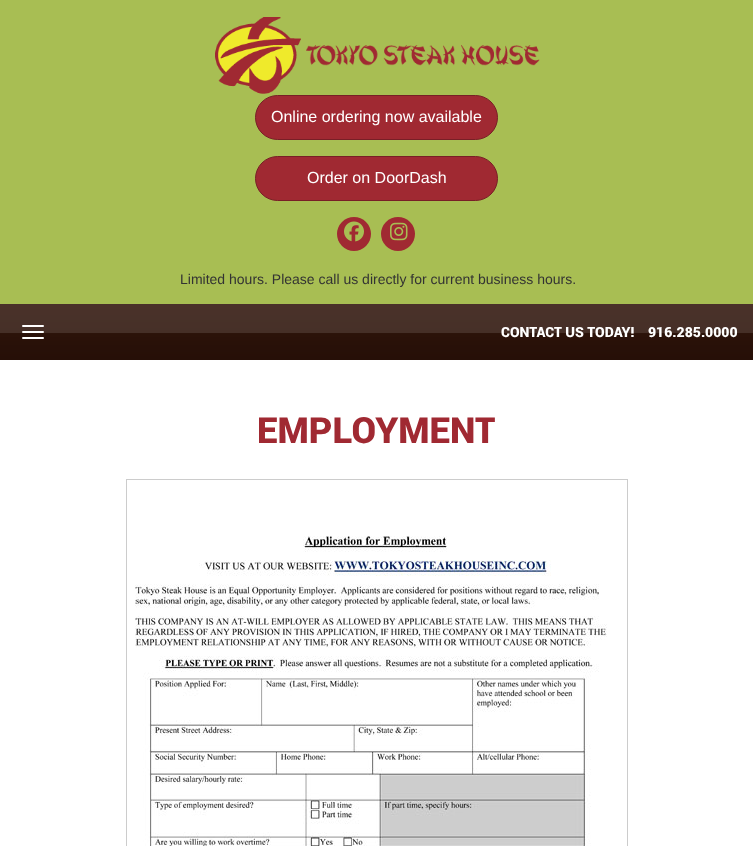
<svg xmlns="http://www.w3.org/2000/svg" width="753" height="846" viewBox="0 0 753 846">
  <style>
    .t1 { font: 16px Liberation Sans; fill: #fff; }
    .t2 { font: 14px Liberation Sans; fill: #333; }
    .t3 { font: 900 14px Roboto; fill: #fff; }
    .t4 { font: 900 36px Roboto; fill: #a02932; }
  </style>
  <rect width="100%" height="100%" fill="#fff"/>
  <rect x="0" y="0" width="753" height="304" fill="#a8be53"/>
  <image x="215" y="17" width="86" height="77" href="images/1.png"/>
  <image x="306" y="45" width="234" height="21" href="images/2.png"/>
  <rect x="255.5" y="95.5" width="242" height="44" rx="22" fill="#a02932" stroke="#781f26"/>
  <text x="271" y="122" class="t1">Online ordering now available</text>
  <rect x="255.5" y="156.5" width="242" height="44" rx="22" fill="#a02932" stroke="#781f26"/>
  <text x="307" y="183" class="t1">Order on DoorDash</text>
  <circle cx="354" cy="234" r="17" fill="#a02932"/>
  <image x="344" y="221" width="20" height="21" href="images/3.png"/>
  <circle cx="398" cy="234" r="17" fill="#a02932"/>
  <image x="390" y="222" width="18" height="19" href="images/4.png"/>
  <text x="180" y="284" class="t2">Limited hours. Please call us directly for current business hours.</text>
  <image x="0" y="304" width="753" height="56" href="images/5.png"/>
  <rect x="22" y="325" width="22" height="2" rx="1" fill="#fff"/>
  <rect x="22" y="331" width="22" height="2" rx="1" fill="#fff"/>
  <rect x="22" y="337" width="22" height="2" rx="1" fill="#fff"/>
  <text x="501" y="337" class="t3">CONTACT US TODAY!</text>
  <text x="648" y="337" class="t3">916.285.0000</text>
  <text x="257" y="443" class="t4">EMPLOYMENT</text>
  <rect x="126.5" y="479.5" width="501" height="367" fill="none" stroke="#ccc"/>
  <image x="135" y="536" width="472" height="310" href="images/6.png"/>
</svg>
